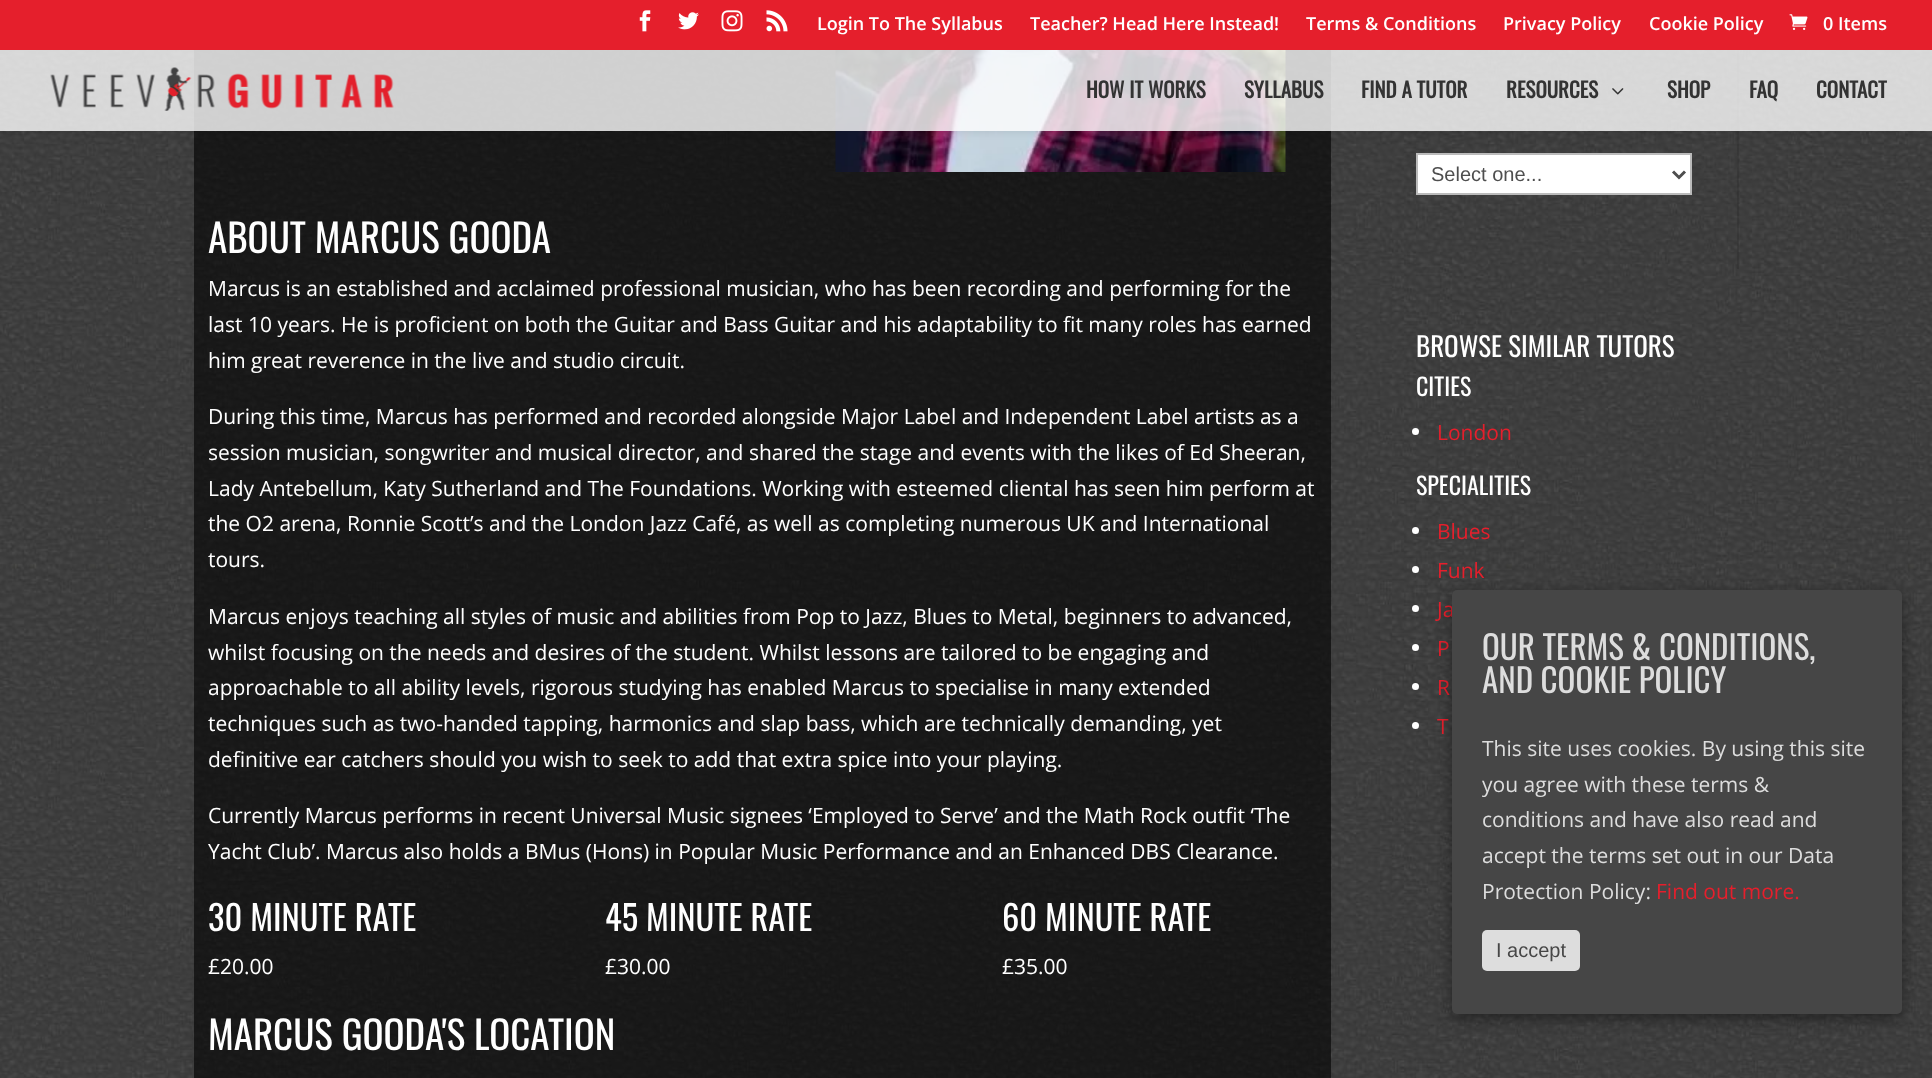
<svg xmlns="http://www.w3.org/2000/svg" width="1932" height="1078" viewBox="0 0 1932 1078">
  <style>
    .t1 { font: 600 18px Open Sans; fill: #fff; }
    .t2 { font: bold 21px Oswald; fill: #333; }
    .t3 { font: 39px Oswald; fill: #fff; }
    .t4 { font: 21px Open Sans; fill: #fff; }
    .t5 { font: 34.5px Oswald; fill: #fff; }
    .t6 { font: 20px Liberation Sans; fill: #4e4e4e; }
    .t7 { font: 27px Oswald; fill: #fff; }
    .t8 { font: 24px Oswald; fill: #fff; }
    .t9 { font: 21px Open Sans; fill: #e51f2c; }
    .t10 { font: 33px Oswald; fill: #ddd; }
    .t11 { font: 21px Open Sans; fill: #ddd; }
    .t12 { font: 20px Liberation Sans; fill: #464646; }
  </style>
  <defs>
    <clipPath id="clip1"><path d="M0 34H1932V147H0ZM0 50H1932V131H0Z" clip-rule="evenodd"/></clipPath>
  </defs>
  <rect width="100%" height="100%" fill="#fff"/>
  <image x="0" y="50" width="1932" height="1028" href="images/1.png"/>
  <rect x="194" y="50" width="1137" height="1028" fill="#00000099"/>
  <image x="835" y="50" width="451" height="122" href="images/9.png"/>
  <rect x="1737" y="50" width="2" height="219" fill="#0000001a"/>
  <g clip-path="url(#clip1)">
    <rect x="0" y="50" width="1932" height="81" fill="#0000001a" filter="blur(5px)"/>
  </g>
  <rect x="0" y="0" width="1932" height="50" fill="#e51f2c"/>
  <image x="639" y="10" width="12" height="22" href="images/2.png"/>
  <image x="678" y="12" width="21" height="18" href="images/3.png"/>
  <image x="721" y="10" width="22" height="22" href="images/4.png"/>
  <image x="766" y="10" width="22" height="22" href="images/5.png"/>
  <text x="817" y="30" class="t1">Login To The Syllabus</text>
  <text x="1030" y="30" class="t1">Teacher? Head Here Instead!</text>
  <text x="1306" y="30" class="t1">Terms &amp; Conditions</text>
  <text x="1503" y="30" class="t1">Privacy Policy</text>
  <text x="1649" y="30" class="t1">Cookie Policy</text>
  <image x="1789" y="14" width="19" height="16" href="images/6.png"/>
  <text x="1823" y="30" class="t1">0 Items</text>
  <rect x="0" y="50" width="1932" height="81" fill="#ffffffcc"/>
  <image x="50" y="67" width="344" height="44" href="images/7.png"/>
  <text x="1086" y="98" class="t2">HOW IT WORKS</text>
  <text x="1244" y="98" class="t2">SYLLABUS</text>
  <text x="1361" y="98" class="t2">FIND A TUTOR</text>
  <text x="1506" y="98" class="t2">RESOURCES</text>
  <image x="1612" y="88" width="12" height="7" href="images/8.png"/>
  <text x="1667" y="98" class="t2">SHOP</text>
  <text x="1749" y="98" class="t2">FAQ</text>
  <text x="1816" y="98" class="t2">CONTACT</text>
  <text x="208" y="253" class="t3">ABOUT MARCUS GOODA</text>
  <text x="208" y="296" class="t4">Marcus is an established and acclaimed professional musician, who has been recording and performing for the</text>
  <text x="208" y="332" class="t4">last 10 years. He is proficient on both the Guitar and Bass Guitar and his adaptability to fit many roles has earned</text>
  <text x="208" y="368" class="t4">him great reverence in the live and studio circuit.</text>
  <text x="208" y="424" class="t4">During this time, Marcus has performed and recorded alongside Major Label and Independent Label artists as a</text>
  <text x="208" y="460" class="t4">session musician, songwriter and musical director, and shared the stage and events with the likes of Ed Sheeran,</text>
  <text x="208" y="496" class="t4">Lady Antebellum, Katy Sutherland and The Foundations. Working with esteemed cliental has seen him perform at</text>
  <text x="208" y="531" class="t4">the O2 arena, Ronnie Scott’s and the London Jazz Café, as well as completing numerous UK and International</text>
  <text x="208" y="567" class="t4">tours.</text>
  <text x="208" y="624" class="t4">Marcus enjoys teaching all styles of music and abilities from Pop to Jazz, Blues to Metal, beginners to advanced,</text>
  <text x="208" y="660" class="t4">whilst focusing on the needs and desires of the student. Whilst lessons are tailored to be engaging and</text>
  <text x="208" y="695" class="t4">approachable to all ability levels, rigorous studying has enabled Marcus to specialise in many extended</text>
  <text x="208" y="731" class="t4">techniques such as two-handed tapping, harmonics and slap bass, which are technically demanding, yet</text>
  <text x="208" y="767" class="t4">definitive ear catchers should you wish to seek to add that extra spice into your playing.</text>
  <text x="208" y="823" class="t4">Currently Marcus performs in recent Universal Music signees ‘Employed to Serve’ and the Math Rock outfit ‘The</text>
  <text x="208" y="859" class="t4">Yacht Club’. Marcus also holds a BMus (Hons) in Popular Music Performance and an Enhanced DBS Clearance.</text>
  <text x="208" y="931" class="t5">30 MINUTE RATE</text>
  <text x="208" y="974" class="t4">£20.00</text>
  <text x="605" y="931" class="t5">45 MINUTE RATE</text>
  <text x="605" y="974" class="t4">£30.00</text>
  <text x="1002" y="931" class="t5">60 MINUTE RATE</text>
  <text x="1002" y="974" class="t4">£35.00</text>
  <text x="208" y="1050" class="t3">MARCUS GOODA'S LOCATION</text>
  <rect x="1417" y="154" width="274" height="40" fill="#fff" stroke="#bbb" stroke-width="2"/>
  <path d="M1673 171.5L1679 177.5L1685 171.5" fill="none" stroke="#4e4e4e" stroke-width="3"/>
  <text x="1431" y="181" class="t6">Select one...</text>
  <text x="1416" y="357" class="t7">BROWSE SIMILAR TUTORS</text>
  <text x="1416" y="396" class="t8">CITIES</text>
  <circle cx="1415.5" cy="431.5" r="3.5" fill="#fff"/>
  <text x="1437" y="440" class="t9">London</text>
  <text x="1416" y="495" class="t8">SPECIALITIES</text>
  <circle cx="1415.5" cy="530.5" r="3.5" fill="#fff"/>
  <text x="1437" y="539" class="t9">Blues</text>
  <circle cx="1415.5" cy="569.5" r="3.5" fill="#fff"/>
  <text x="1437" y="578" class="t9">Funk</text>
  <circle cx="1415.5" cy="608.5" r="3.5" fill="#fff"/>
  <text x="1437" y="617" class="t9">Ja</text>
  <circle cx="1415.5" cy="647.5" r="3.5" fill="#fff"/>
  <text x="1437" y="656" class="t9">P</text>
  <circle cx="1415.5" cy="686.5" r="3.5" fill="#fff"/>
  <text x="1437" y="695" class="t9">R</text>
  <circle cx="1415.5" cy="725.5" r="3.5" fill="#fff"/>
  <text x="1437" y="734" class="t9">T</text>
  <rect x="1452" y="594" width="450" height="425" rx="5" fill="#00000066" filter="blur(7px)"/>
  <rect x="1452" y="590" width="450" height="424" rx="5" fill="#464646"/>
  <text x="1482" y="660" class="t10">OUR TERMS &amp; CONDITIONS,</text>
  <text x="1482" y="693" class="t10">AND COOKIE POLICY</text>
  <text x="1482" y="756" class="t11">This site uses cookies. By using this site</text>
  <text x="1482" y="792" class="t11">you agree with these terms &amp;</text>
  <text x="1482" y="827" class="t11">conditions and have also read and</text>
  <text x="1482" y="863" class="t11">accept the terms set out in our Data</text>
  <text x="1482" y="899" class="t11">Protection Policy:</text>
  <text x="1656" y="899" class="t9">Find out more.</text>
  <rect x="1482" y="930" width="98" height="41" rx="5" fill="#ddd"/>
  <text x="1496" y="957" class="t12">I accept</text>
</svg>
